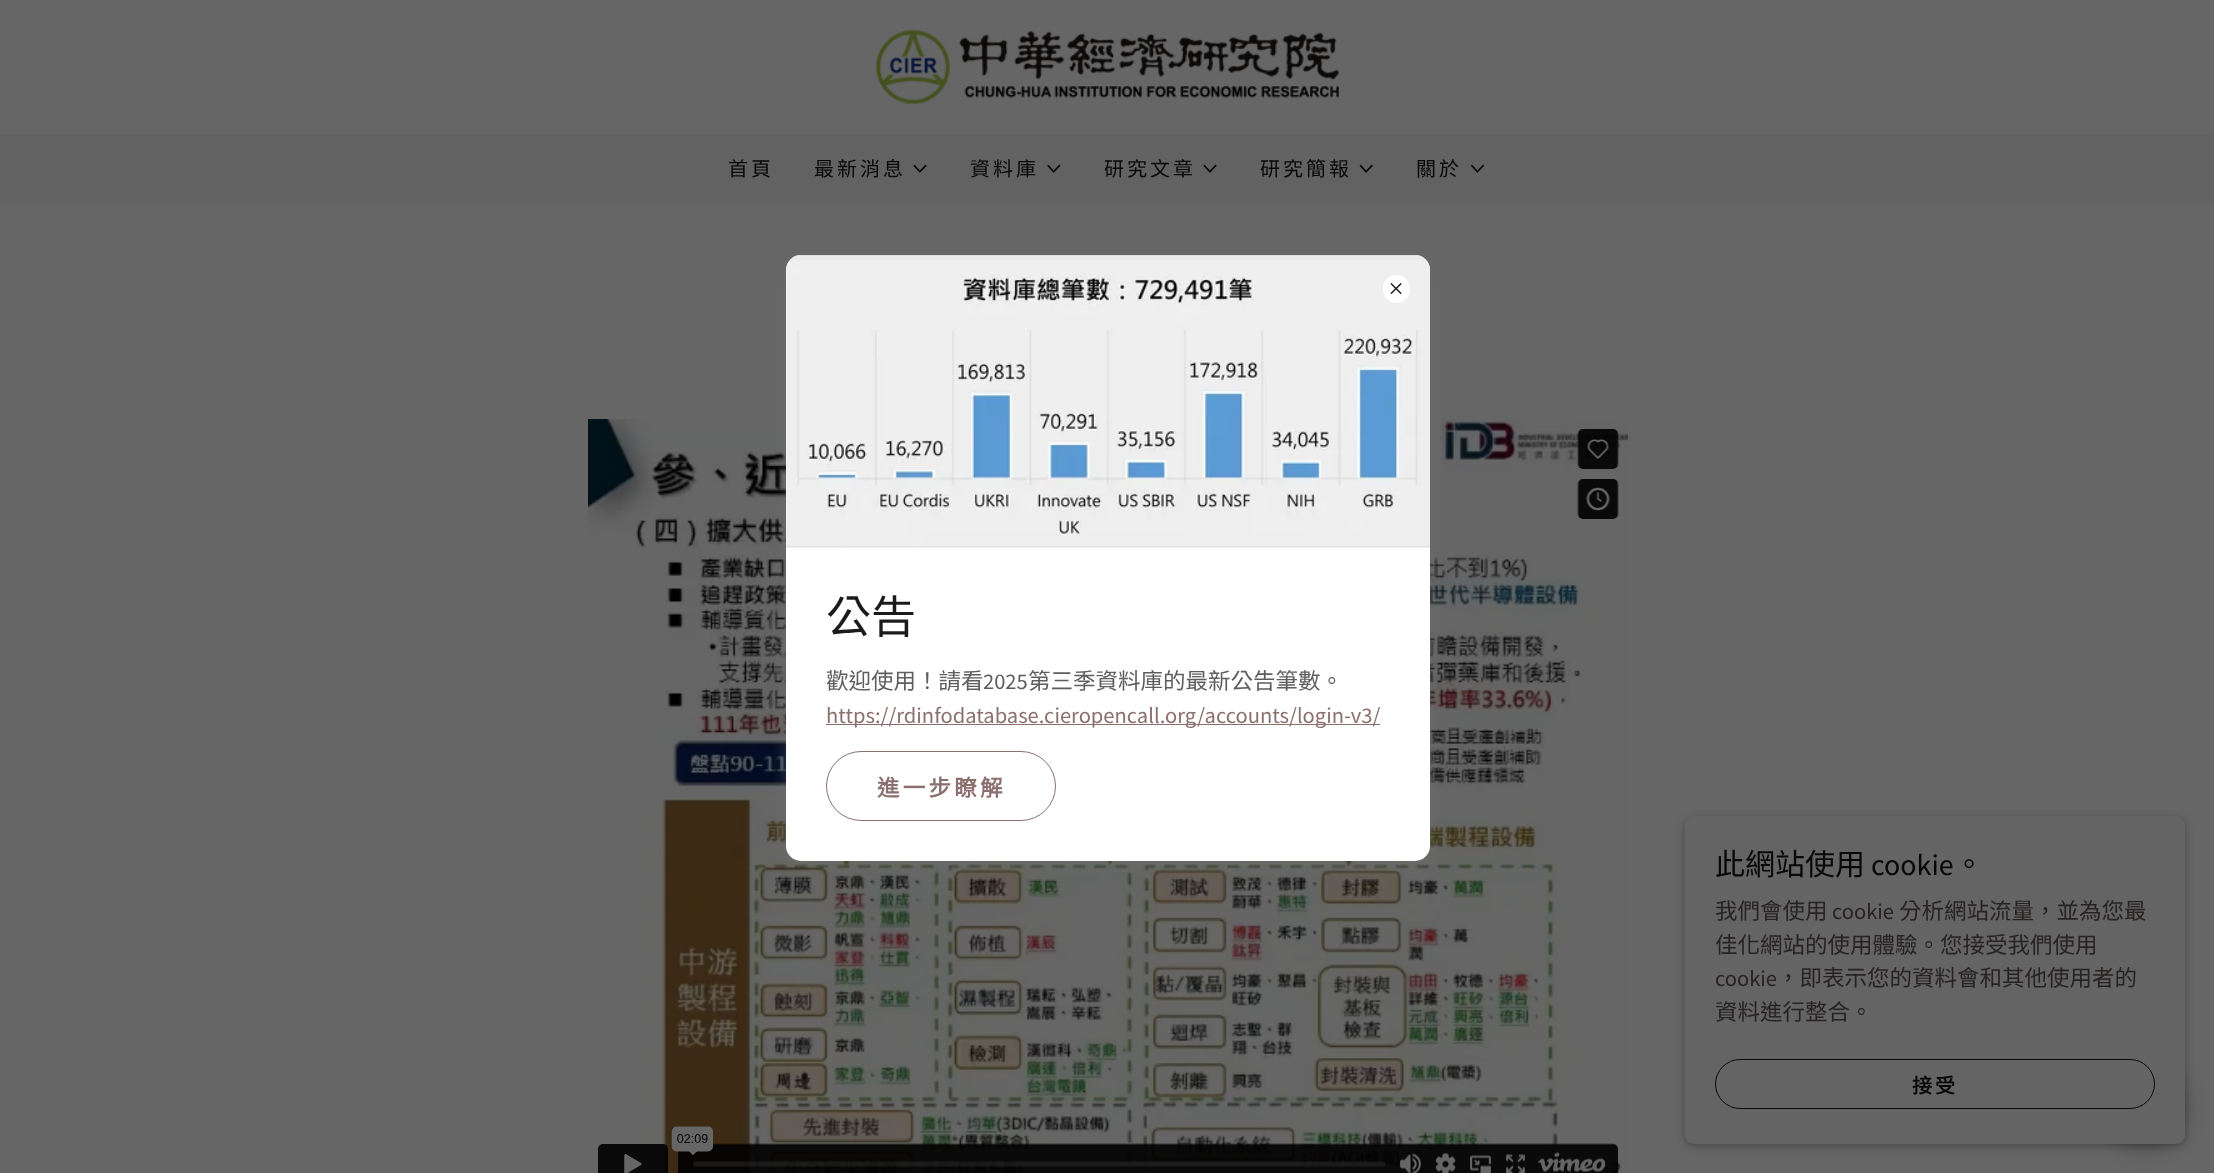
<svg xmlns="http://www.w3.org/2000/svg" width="2214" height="1173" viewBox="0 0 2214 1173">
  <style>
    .t1 { font: 20px Noto Sans CJK TC; letter-spacing: 3px; fill: #080808; }
    .t2 { font: 45px Noto Sans CJK TC; fill: #1b1b1b; }
    .t3 { font: 22.5px Noto Sans CJK TC; fill: #5e5e5e; }
    .t4 { font: 22.5px Source Sans Pro; fill: #5e5e5e; }
    .t5 { font: 22.5px Source Sans Pro; fill: #8c6f6f; }
    .t6 { font: bold 22.5px Noto Sans CJK TC; letter-spacing: 3.25px; fill: #8c6f6f; }
    .t7 { font: 30px Noto Sans CJK TC; fill: #080808; }
    .t8 { font: 30px Source Sans Pro; fill: #080808; }
    .t9 { font: 22.5px Noto Sans CJK TC; fill: #272323; }
    .t10 { font: 22.5px Source Sans Pro; fill: #272323; }
    .t11 { font: bold 20px Noto Sans CJK TC; letter-spacing: 3px; fill: #080808; }
  </style>
  <rect width="100%" height="100%" fill="#666"/>
  <image x="876" y="30" width="463" height="74" href="images/1.png"/>
  <rect x="0" y="134" width="2214" height="70" fill="#626262"/>
  <text x="728" y="176" class="t1">首頁</text>
  <text x="814" y="176" class="t1">最新消息</text>
  <image x="913" y="164" width="14" height="9" href="images/2.png"/>
  <text x="970" y="176" class="t1">資料庫</text>
  <image x="1047" y="164" width="14" height="9" href="images/3.png"/>
  <text x="1104" y="176" class="t1">研究文章</text>
  <image x="1203" y="164" width="14" height="9" href="images/2.png"/>
  <text x="1260" y="176" class="t1">研究簡報</text>
  <image x="1359" y="164" width="14" height="9" href="images/4.png"/>
  <text x="1416" y="176" class="t1">關於</text>
  <image x="1470" y="164" width="15" height="9" href="images/5.png"/>
  <image x="588" y="419" width="1040" height="754" href="images/6.png"/>
  <rect x="786" y="260" width="644" height="606" rx="15" fill="#75757566" filter="blur(7.5px)"/>
  <rect x="786" y="255" width="644" height="606" rx="15" fill="#fff"/>
  <image x="786" y="255" width="644" height="293" href="images/8.png"/>
  <rect x="1383" y="275" width="27" height="28" rx="13.5" fill="#fff"/>
  <image x="1390" y="283" width="12" height="12" href="images/7.png"/>
  <text x="826" y="633" class="t2">公告</text>
  <text x="826" y="689" class="t3">歡迎使用！請看</text>
  <text x="983" y="689" class="t4">2025</text>
  <text x="1028" y="689" class="t3">第三季資料庫的最新公告筆數。</text>
  <rect x="826" y="724" width="554" height="1" fill="#8c6f6f"/>
  <text x="826" y="723" class="t5">https://rdinfodatabase.cieropencall.org/accounts/login-v3/</text>
  <rect x="826.5" y="751.5" width="229" height="69" rx="34.5" fill="none" stroke="#8c6f6f"/>
  <text x="877" y="796" class="t6">進一步瞭解</text>
  <rect x="1685" y="819" width="500" height="327" rx="9" fill="#0000004d" filter="blur(4px)"/>
  <rect x="2104" y="1066" width="81" height="82" rx="40.5" fill="#00000040" filter="blur(11px)"/>
  <rect x="1685" y="816" width="500" height="328" rx="9" fill="#646464"/>
  <text x="1715" y="875" class="t7">此網站使用</text>
  <text x="1871" y="875" class="t8">cookie</text>
  <text x="1954" y="875" class="t7">。</text>
  <text x="1715" y="919" class="t9">我們會使用</text>
  <text x="1832" y="919" class="t10">cookie</text>
  <text x="1899" y="919" class="t9">分析網站流量，並為您最</text>
  <text x="1715" y="953" class="t9">佳化網站的使用體驗。您接受我們使用</text>
  <text x="1715" y="986" class="t10">cookie</text>
  <text x="1777" y="986" class="t9">，即表示您的資料會和其他使用者的</text>
  <text x="1715" y="1020" class="t9">資料進行整合。</text>
  <rect x="1715.5" y="1059.5" width="439" height="49" rx="24.5" fill="none" stroke="#090909"/>
  <text x="1912" y="1093" class="t11">接受</text>
</svg>
